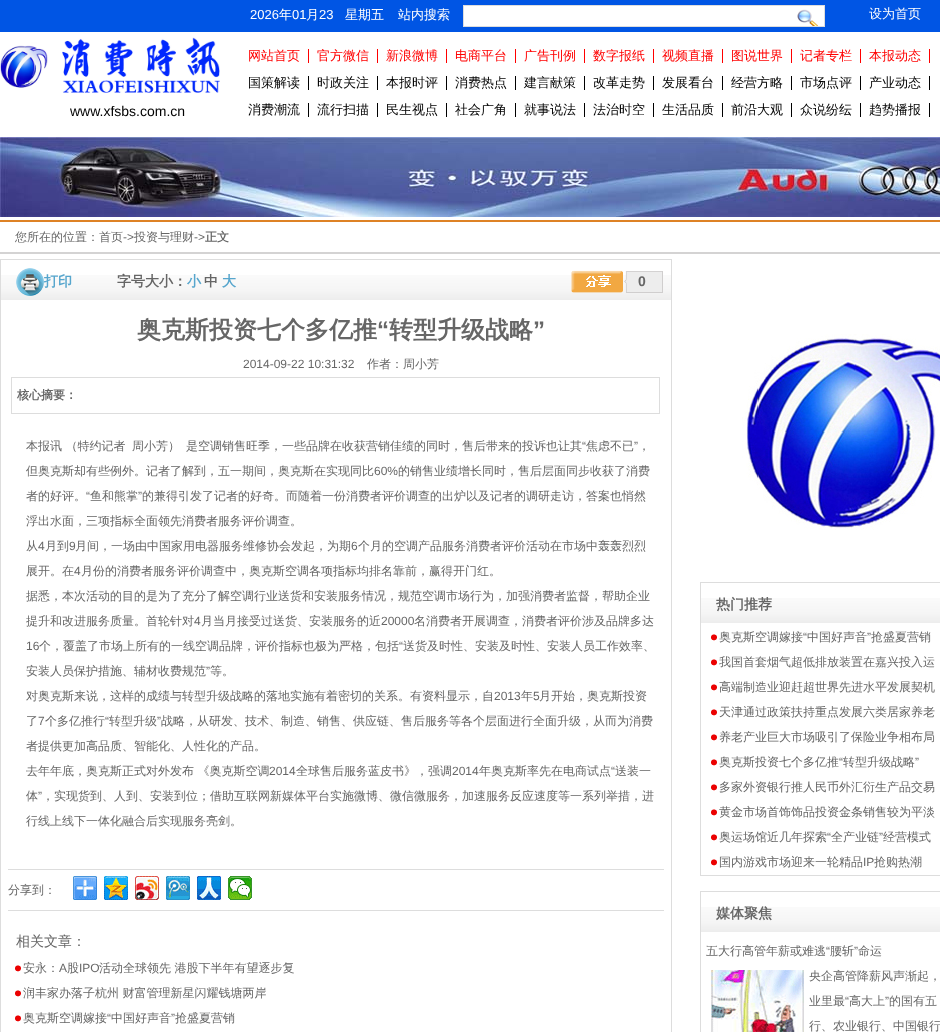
<svg xmlns="http://www.w3.org/2000/svg" width="940" height="1032" viewBox="0 0 940 1032">
  <style>
    .t1 { font: 13px Liberation Sans; fill: #fff; }
    .t2 { font: 500 13px WenQuanYi Zen Hei; fill: #fff; }
    .t3 { font: 14px Liberation Sans; fill: #000; }
    .t4 { font: 500 13px WenQuanYi Zen Hei; fill: #f00; }
    .t5 { font: 500 13px WenQuanYi Zen Hei; fill: #000; }
    .t6 { font: 500 12px WenQuanYi Zen Hei; fill: #666; }
    .t7 { font: 12px Liberation Sans; fill: #666; }
    .t8 { font: bold 12px WenQuanYi Zen Hei; fill: #666; }
    .t9 { font: bold 14px WenQuanYi Zen Hei; fill: #57a6cd; }
    .t10 { font: bold 14px WenQuanYi Zen Hei; fill: #666; }
    .t11 { font: bold 14px Liberation Sans; fill: #666; }
    .t12 { font: bold 24px WenQuanYi Zen Hei; fill: #666; }
    .t13 { font: bold 24px Liberation Sans; fill: #666; }
    .t14 { font: 500 14px WenQuanYi Zen Hei; fill: #666; }
  </style>
  <rect width="100%" height="100%" fill="#fff"/>
  <rect x="0" y="0" width="940" height="32" fill="#0055e4"/>
  <text x="250" y="19" class="t1">2026</text>
  <text x="279" y="19" class="t2">年</text>
  <text x="292" y="19" class="t1">01</text>
  <text x="306" y="19" class="t2">月</text>
  <text x="319" y="19" class="t1">23</text>
  <text x="345" y="19" class="t2">星期五</text>
  <text x="398" y="19" class="t2">站内搜索</text>
  <rect x="463.5" y="5.5" width="361" height="21" fill="#fff" stroke="#ddd"/>
  <image x="797" y="9" width="21" height="17" href="images/1.png"/>
  <text x="869" y="18" class="t2">设为首页</text>
  <image x="0" y="37" width="220" height="56" href="images/2.png"/>
  <text x="70" y="116" class="t3">www.xfsbs.com.cn</text>
  <rect x="308" y="49" width="1" height="14" fill="#f00"/>
  <text x="248" y="60" class="t4">网站首页</text>
  <rect x="377" y="49" width="1" height="14" fill="#f00"/>
  <text x="317" y="60" class="t4">官方微信</text>
  <rect x="446" y="49" width="1" height="14" fill="#f00"/>
  <text x="386" y="60" class="t4">新浪微博</text>
  <rect x="515" y="49" width="1" height="14" fill="#f00"/>
  <text x="455" y="60" class="t4">电商平台</text>
  <rect x="584" y="49" width="1" height="14" fill="#f00"/>
  <text x="524" y="60" class="t4">广告刊例</text>
  <rect x="653" y="49" width="1" height="14" fill="#f00"/>
  <text x="593" y="60" class="t4">数字报纸</text>
  <rect x="722" y="49" width="1" height="14" fill="#f00"/>
  <text x="662" y="60" class="t4">视频直播</text>
  <rect x="791" y="49" width="1" height="14" fill="#f00"/>
  <text x="731" y="60" class="t4">图说世界</text>
  <rect x="860" y="49" width="1" height="14" fill="#f00"/>
  <text x="800" y="60" class="t4">记者专栏</text>
  <rect x="929" y="49" width="1" height="14" fill="#f00"/>
  <text x="869" y="60" class="t4">本报动态</text>
  <rect x="308" y="76" width="1" height="14" fill="#000"/>
  <text x="248" y="87" class="t5">国策解读</text>
  <rect x="377" y="76" width="1" height="14" fill="#000"/>
  <text x="317" y="87" class="t5">时政关注</text>
  <rect x="446" y="76" width="1" height="14" fill="#000"/>
  <text x="386" y="87" class="t5">本报时评</text>
  <rect x="515" y="76" width="1" height="14" fill="#000"/>
  <text x="455" y="87" class="t5">消费热点</text>
  <rect x="584" y="76" width="1" height="14" fill="#000"/>
  <text x="524" y="87" class="t5">建言献策</text>
  <rect x="653" y="76" width="1" height="14" fill="#000"/>
  <text x="593" y="87" class="t5">改革走势</text>
  <rect x="722" y="76" width="1" height="14" fill="#000"/>
  <text x="662" y="87" class="t5">发展看台</text>
  <rect x="791" y="76" width="1" height="14" fill="#000"/>
  <text x="731" y="87" class="t5">经营方略</text>
  <rect x="860" y="76" width="1" height="14" fill="#000"/>
  <text x="800" y="87" class="t5">市场点评</text>
  <rect x="929" y="76" width="1" height="14" fill="#000"/>
  <text x="869" y="87" class="t5">产业动态</text>
  <rect x="308" y="103" width="1" height="14" fill="#000"/>
  <text x="248" y="114" class="t5">消费潮流</text>
  <rect x="377" y="103" width="1" height="14" fill="#000"/>
  <text x="317" y="114" class="t5">流行扫描</text>
  <rect x="446" y="103" width="1" height="14" fill="#000"/>
  <text x="386" y="114" class="t5">民生视点</text>
  <rect x="515" y="103" width="1" height="14" fill="#000"/>
  <text x="455" y="114" class="t5">社会广角</text>
  <rect x="584" y="103" width="1" height="14" fill="#000"/>
  <text x="524" y="114" class="t5">就事说法</text>
  <rect x="653" y="103" width="1" height="14" fill="#000"/>
  <text x="593" y="114" class="t5">法治时空</text>
  <rect x="722" y="103" width="1" height="14" fill="#000"/>
  <text x="662" y="114" class="t5">生活品质</text>
  <rect x="791" y="103" width="1" height="14" fill="#000"/>
  <text x="731" y="114" class="t5">前沿大观</text>
  <rect x="860" y="103" width="1" height="14" fill="#000"/>
  <text x="800" y="114" class="t5">众说纷纭</text>
  <rect x="929" y="103" width="1" height="14" fill="#000"/>
  <text x="869" y="114" class="t5">趋势播报</text>
  <rect x="0" y="220" width="940" height="2" fill="#de8225"/>
  <image x="0" y="137" width="940" height="80" href="images/3.png"/>
  <rect x="0" y="252" width="940" height="2" fill="#d4d3d3"/>
  <text x="15" y="241" class="t6">您所在的位置：首页</text>
  <text x="123" y="241" class="t7">-&gt;</text>
  <text x="134" y="241" class="t6">投资与理财</text>
  <text x="194" y="241" class="t7">-&gt;</text>
  <text x="205" y="241" class="t8">正文</text>
  <rect x="0.5" y="259.5" width="671" height="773" fill="none" stroke="#ddd"/>
  <image x="1" y="275" width="670" height="25" href="images/4.png"/>
  <image x="16" y="268" width="28" height="28" href="images/5.png"/>
  <text x="44" y="286" class="t9">打印</text>
  <text x="117" y="286" class="t10">字号大小：</text>
  <text x="187" y="286" class="t9">小</text>
  <text x="204" y="286" class="t10">中</text>
  <text x="222" y="286" class="t9">大</text>
  <image x="571" y="270" width="52" height="23" href="images/6.png"/>
  <image x="624" y="271" width="39" height="22" href="images/7.png"/>
  <text x="638" y="286" class="t11">0</text>
  <text x="137" y="338" class="t12">奥克斯投资七个多亿推</text>
  <text x="377" y="338" class="t13">“</text>
  <text x="389" y="338" class="t12">转型升级战略</text>
  <text x="533" y="338" class="t13">”</text>
  <text x="243" y="368" class="t7">2014-09-22 10:31:32</text>
  <text x="367" y="368" class="t6">作者：周小芳</text>
  <rect x="11.5" y="377.5" width="648" height="36" fill="none" stroke="#ddd"/>
  <text x="17" y="399" class="t8">核心摘要：</text>
  <text x="26" y="450" class="t6">本报讯 （特约记者</text>
  <text x="132" y="450" class="t6">周小芳）</text>
  <text x="186" y="450" class="t6">是空调销售旺季，一些品牌在收获营销佳绩的同时，售后带来的投诉也让其</text>
  <text x="582" y="450" class="t7">“</text>
  <text x="586" y="450" class="t6">焦虑不已</text>
  <text x="634" y="450" class="t7">”</text>
  <text x="638" y="450" class="t6">，</text>
  <text x="26" y="475" class="t6">但奥克斯却有些例外。记者了解到，五一期间，奥克斯在实现同比</text>
  <text x="374" y="475" class="t7">60%</text>
  <text x="398" y="475" class="t6">的销售业绩增长同时，售后层面同步收获了消费</text>
  <text x="26" y="500" class="t6">者的好评。</text>
  <text x="86" y="500" class="t7">“</text>
  <text x="90" y="500" class="t6">鱼和熊掌</text>
  <text x="138" y="500" class="t7">”</text>
  <text x="142" y="500" class="t6">的兼得引发了记者的好奇。而随着一份消费者评价调查的出炉以及记者的调研走访，答案也悄然</text>
  <text x="26" y="525" class="t6">浮出水面，三项指标全面领先消费者服务评价调查。</text>
  <text x="26" y="550" class="t6">从</text>
  <text x="38" y="550" class="t7">4</text>
  <text x="45" y="550" class="t6">月到</text>
  <text x="69" y="550" class="t7">9</text>
  <text x="75" y="550" class="t6">月间，一场由中国家用电器服务维修协会发起，为期</text>
  <text x="351" y="550" class="t7">6</text>
  <text x="358" y="550" class="t6">个月的空调产品服务消费者评价活动在市场中轰轰烈烈</text>
  <text x="26" y="575" class="t6">展开。在</text>
  <text x="74" y="575" class="t7">4</text>
  <text x="81" y="575" class="t6">月份的消费者服务评价调查中，奥克斯空调各项指标均排名靠前，赢得开门红。</text>
  <text x="26" y="600" class="t6">据悉，本次活动的目的是为了充分了解空调行业送货和安装服务情况，规范空调市场行为，加强消费者监督，帮助企业</text>
  <text x="26" y="625" class="t6">提升和改进服务质量。首轮针对</text>
  <text x="194" y="625" class="t7">4</text>
  <text x="201" y="625" class="t6">月当月接受过送货、安装服务的近</text>
  <text x="381" y="625" class="t7">20000</text>
  <text x="414" y="625" class="t6">名消费者开展调查，消费者评价涉及品牌多达</text>
  <text x="26" y="650" class="t7">16</text>
  <text x="39" y="650" class="t6">个，覆盖了市场上所有的一线空调品牌，评价指标也极为严格，包括</text>
  <text x="399" y="650" class="t7">“</text>
  <text x="403" y="650" class="t6">送货及时性、安装及时性、安装人员工作效率、</text>
  <text x="26" y="675" class="t6">安装人员保护措施、辅材收费规范</text>
  <text x="206" y="675" class="t7">”</text>
  <text x="210" y="675" class="t6">等。</text>
  <text x="26" y="700" class="t6">对奥克斯来说，这样的成绩与转型升级战略的落地实施有着密切的关系。有资料显示，自</text>
  <text x="494" y="700" class="t7">2013</text>
  <text x="521" y="700" class="t6">年</text>
  <text x="533" y="700" class="t7">5</text>
  <text x="539" y="700" class="t6">月开始，奥克斯投资</text>
  <text x="26" y="725" class="t6">了</text>
  <text x="38" y="725" class="t7">7</text>
  <text x="45" y="725" class="t6">个多亿推行</text>
  <text x="105" y="725" class="t7">“</text>
  <text x="109" y="725" class="t6">转型升级</text>
  <text x="157" y="725" class="t7">”</text>
  <text x="161" y="725" class="t6">战略，从研发、技术、制造、销售、供应链、售后服务等各个层面进行全面升级，从而为消费</text>
  <text x="26" y="750" class="t6">者提供更加高品质、智能化、人性化的产品。</text>
  <text x="26" y="775" class="t6">去年年底，奥克斯正式对外发布 《奥克斯空调</text>
  <text x="269" y="775" class="t7">2014</text>
  <text x="296" y="775" class="t6">全球售后服务蓝皮书》，强调</text>
  <text x="452" y="775" class="t7">2014</text>
  <text x="479" y="775" class="t6">年奥克斯率先在电商试点</text>
  <text x="611" y="775" class="t7">“</text>
  <text x="615" y="775" class="t6">送装一</text>
  <text x="26" y="800" class="t6">体</text>
  <text x="38" y="800" class="t7">”</text>
  <text x="42" y="800" class="t6">，实现货到、人到、安装到位；借助互联网新媒体平台实施微博、微信微服务，加速服务反应速度等一系列举措，进</text>
  <text x="26" y="825" class="t6">行线上线下一体化融合后实现服务亮剑。</text>
  <rect x="8" y="869" width="656" height="1" fill="#ddd"/>
  <rect x="8" y="910" width="656" height="1" fill="#ddd"/>
  <text x="8" y="894" class="t6">分享到：</text>
  <image x="73" y="876" width="24" height="24" href="images/8.png"/>
  <image x="104" y="876" width="24" height="24" href="images/9.png"/>
  <image x="135" y="876" width="24" height="24" href="images/10.png"/>
  <image x="166" y="876" width="24" height="24" href="images/11.png"/>
  <image x="197" y="876" width="24" height="24" href="images/12.png"/>
  <image x="228" y="876" width="24" height="24" href="images/13.png"/>
  <text x="16" y="946" class="t14">相关文章：</text>
  <image x="15" y="965" width="6" height="7" href="images/14.png"/>
  <text x="23" y="972" class="t6">安永：</text>
  <text x="59" y="972" class="t7">A</text>
  <text x="67" y="972" class="t6">股</text>
  <text x="79" y="972" class="t7">IPO</text>
  <text x="99" y="972" class="t6">活动全球领先 港股下半年有望逐步复</text>
  <image x="15" y="990" width="6" height="7" href="images/14.png"/>
  <text x="23" y="997" class="t6">润丰家办落子杭州 财富管理新星闪耀钱塘两岸</text>
  <image x="15" y="1015" width="6" height="7" href="images/14.png"/>
  <text x="23" y="1022" class="t6">奥克斯空调嫁接</text>
  <text x="107" y="1022" class="t7">“</text>
  <text x="111" y="1022" class="t6">中国好声音</text>
  <text x="171" y="1022" class="t7">”</text>
  <text x="175" y="1022" class="t6">抢盛夏营销</text>
  <image x="742" y="334" width="198" height="196" href="images/15.png"/>
  <rect x="700.5" y="582.5" width="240" height="293" fill="none" stroke="#ddd"/>
  <image x="701" y="598" width="239" height="25" href="images/16.png"/>
  <text x="716" y="609" class="t10">热门推荐</text>
  <image x="711" y="634" width="6" height="7" href="images/14.png"/>
  <text x="719" y="641" class="t6">奥克斯空调嫁接</text>
  <text x="803" y="641" class="t7">“</text>
  <text x="807" y="641" class="t6">中国好声音</text>
  <text x="867" y="641" class="t7">”</text>
  <text x="871" y="641" class="t6">抢盛夏营销</text>
  <image x="711" y="659" width="6" height="7" href="images/14.png"/>
  <text x="719" y="666" class="t6">我国首套烟气超低排放装置在嘉兴投入运</text>
  <image x="711" y="684" width="6" height="7" href="images/14.png"/>
  <text x="719" y="691" class="t6">高端制造业迎赶超世界先进水平发展契机</text>
  <image x="711" y="709" width="6" height="7" href="images/14.png"/>
  <text x="719" y="716" class="t6">天津通过政策扶持重点发展六类居家养老</text>
  <image x="711" y="734" width="6" height="7" href="images/14.png"/>
  <text x="719" y="741" class="t6">养老产业巨大市场吸引了保险业争相布局</text>
  <image x="711" y="759" width="6" height="7" href="images/14.png"/>
  <text x="719" y="766" class="t6">奥克斯投资七个多亿推</text>
  <text x="839" y="766" class="t7">“</text>
  <text x="843" y="766" class="t6">转型升级战略</text>
  <text x="915" y="766" class="t7">”</text>
  <image x="711" y="784" width="6" height="7" href="images/14.png"/>
  <text x="719" y="791" class="t6">多家外资银行推人民币外汇衍生产品交易</text>
  <image x="711" y="809" width="6" height="7" href="images/14.png"/>
  <text x="719" y="816" class="t6">黄金市场首饰饰品投资金条销售较为平淡</text>
  <image x="711" y="834" width="6" height="7" href="images/14.png"/>
  <text x="719" y="841" class="t6">奥运场馆近几年探索</text>
  <text x="827" y="841" class="t7">“</text>
  <text x="831" y="841" class="t6">全产业链</text>
  <text x="879" y="841" class="t7">”</text>
  <text x="883" y="841" class="t6">经营模式</text>
  <image x="711" y="859" width="6" height="7" href="images/14.png"/>
  <text x="719" y="866" class="t6">国内游戏市场迎来一轮精品</text>
  <text x="863" y="866" class="t7">IP</text>
  <text x="874" y="866" class="t6">抢购热潮</text>
  <rect x="700.5" y="891.5" width="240" height="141" fill="none" stroke="#ddd"/>
  <image x="701" y="907" width="239" height="25" href="images/16.png"/>
  <text x="716" y="918" class="t10">媒体聚焦</text>
  <text x="706" y="955" class="t6">五大行高管年薪或难逃</text>
  <text x="826" y="955" class="t7">“</text>
  <text x="830" y="955" class="t6">腰斩</text>
  <text x="854" y="955" class="t7">”</text>
  <text x="858" y="955" class="t6">命运</text>
  <image x="711" y="970" width="93" height="62" href="images/17.png"/>
  <text x="809" y="980" class="t6">央企高管降薪风声渐起，</text>
  <text x="809" y="1005" class="t6">业里最</text>
  <text x="845" y="1005" class="t7">“</text>
  <text x="849" y="1005" class="t6">高大上</text>
  <text x="885" y="1005" class="t7">”</text>
  <text x="889" y="1005" class="t6">的国有五</text>
  <text x="809" y="1030" class="t6">行、农业银行、中国银行</text>
</svg>
